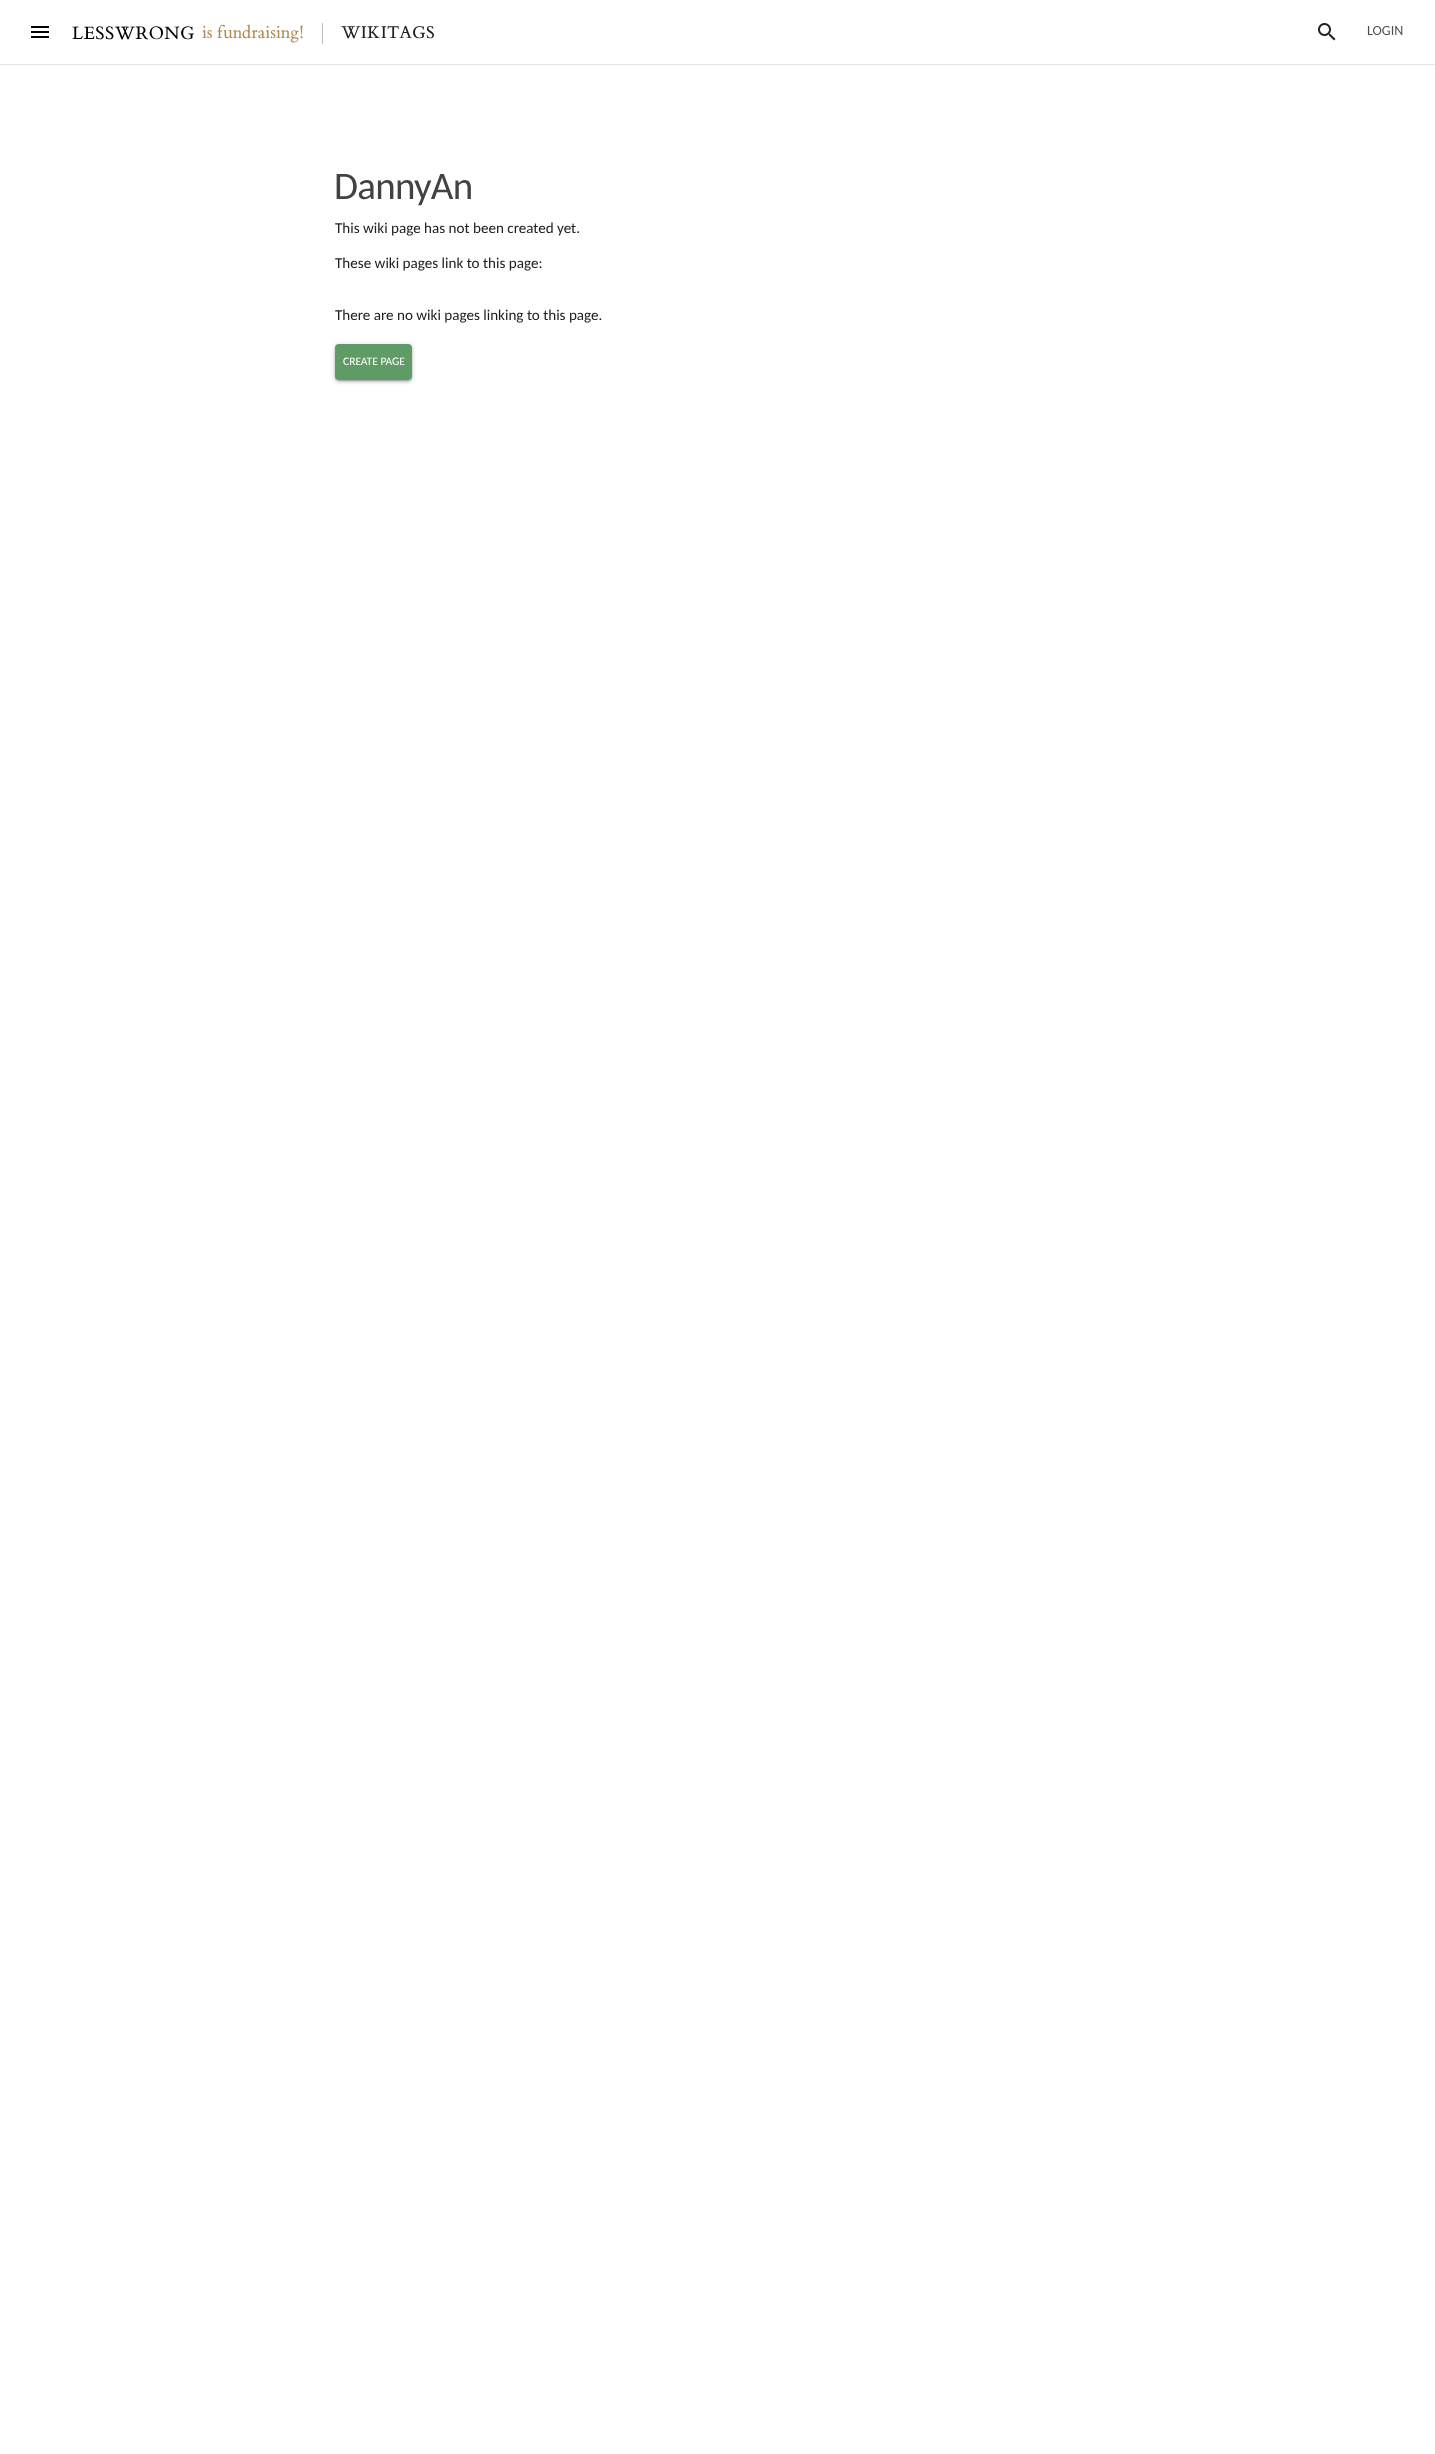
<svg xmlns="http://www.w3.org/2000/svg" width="1435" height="2454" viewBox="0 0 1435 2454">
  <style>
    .t1 { font: 19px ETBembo; fill: #000; }
    .t2 { font: 18.25px ETBembo; fill: #b3884f; }
    .t3 { font: 18px ETBembo; fill: #212121; }
    .t4 { font: 14px Carlito; fill: #4e4e4e; }
    .t5 { font: 39px Carlito; letter-spacing: -0.75px; fill: #424242; }
    .t6 { font: 15.1px Carlito; fill: #212121; }
    .t7 { font: 11.5px Carlito; fill: #fff; }
  </style>
  <defs>
    <clipPath id="clip1"><rect x="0" y="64" width="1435" height="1"/></clipPath>
  </defs>
  <rect width="100%" height="100%" fill="#fff"/>
  <g clip-path="url(#clip1)">
    <rect x="0" y="1" width="1435" height="64" fill="#0000000d" filter="blur(0.5px)"/>
    <rect x="0" y="1" width="1435" height="64" fill="#0000000d" filter="blur(0.5px)"/>
  </g>
  <image x="31" y="26" width="18" height="12" href="images/1.png"/>
  <text x="72" y="39" class="t1">LESSWRONG</text>
  <text x="202" y="38" class="t2">is fundraising!</text>
  <rect x="322" y="23" width="1" height="21" fill="#bdbdbd"/>
  <text x="341" y="38" class="t3">WIKITAGS</text>
  <image x="1318" y="23" width="18" height="18" href="images/2.png"/>
  <text x="1367" y="35" class="t4">LOGIN</text>
  <text x="334" y="199" class="t5">DannyAn</text>
  <text x="335" y="233" class="t6">This wiki page has not been created yet.</text>
  <text x="335" y="268" class="t6">These wiki pages link to this page:</text>
  <text x="335" y="320" class="t6">There are no wiki pages linking to this page.</text>
  <rect x="337" y="349" width="73" height="32" rx="2" fill="#0000001f" filter="blur(0.5px)"/>
  <rect x="335" y="346" width="77" height="36" rx="4" fill="#00000024" filter="blur(1px)"/>
  <rect x="335" y="345" width="77" height="36" rx="4" fill="#00000033" filter="blur(2.5px)"/>
  <rect x="335" y="344" width="77" height="36" rx="4" fill="#5f9b65"/>
  <text x="343" y="365" class="t7">CREATE PAGE</text>
</svg>
